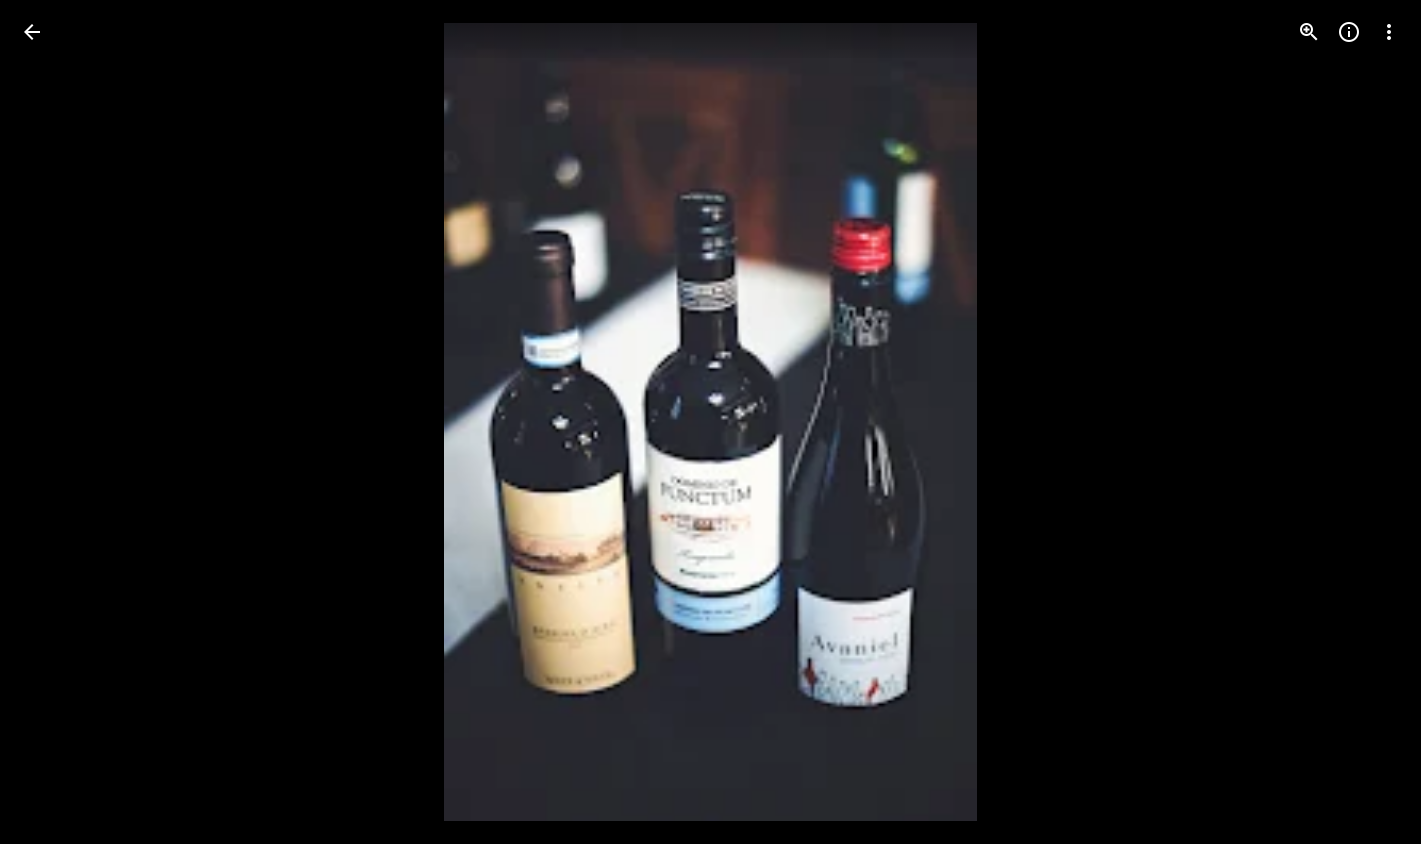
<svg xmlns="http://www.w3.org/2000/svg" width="1421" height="844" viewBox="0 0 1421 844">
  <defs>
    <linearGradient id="g1" gradientUnits="userSpaceOnUse" x1="711" y1="0" x2="711" y2="64"><stop offset="0" stop-color="#000" stop-opacity="0.6"/><stop offset="1" stop-color="#000" stop-opacity="0"/></linearGradient>
  </defs>
  <rect width="100%" height="100%" fill="#000"/>
  <image x="444" y="23" width="533" height="798" href="images/5.png"/>
  <rect x="444" y="23" width="533" height="35" fill="url(#g1)"/>
  <image x="24" y="24" width="16" height="16" href="images/1.png"/>
  <image x="1300" y="23" width="18" height="18" href="images/2.png"/>
  <image x="1339" y="22" width="20" height="20" href="images/3.png"/>
  <image x="1387" y="24" width="4" height="16" href="images/4.png"/>
</svg>
